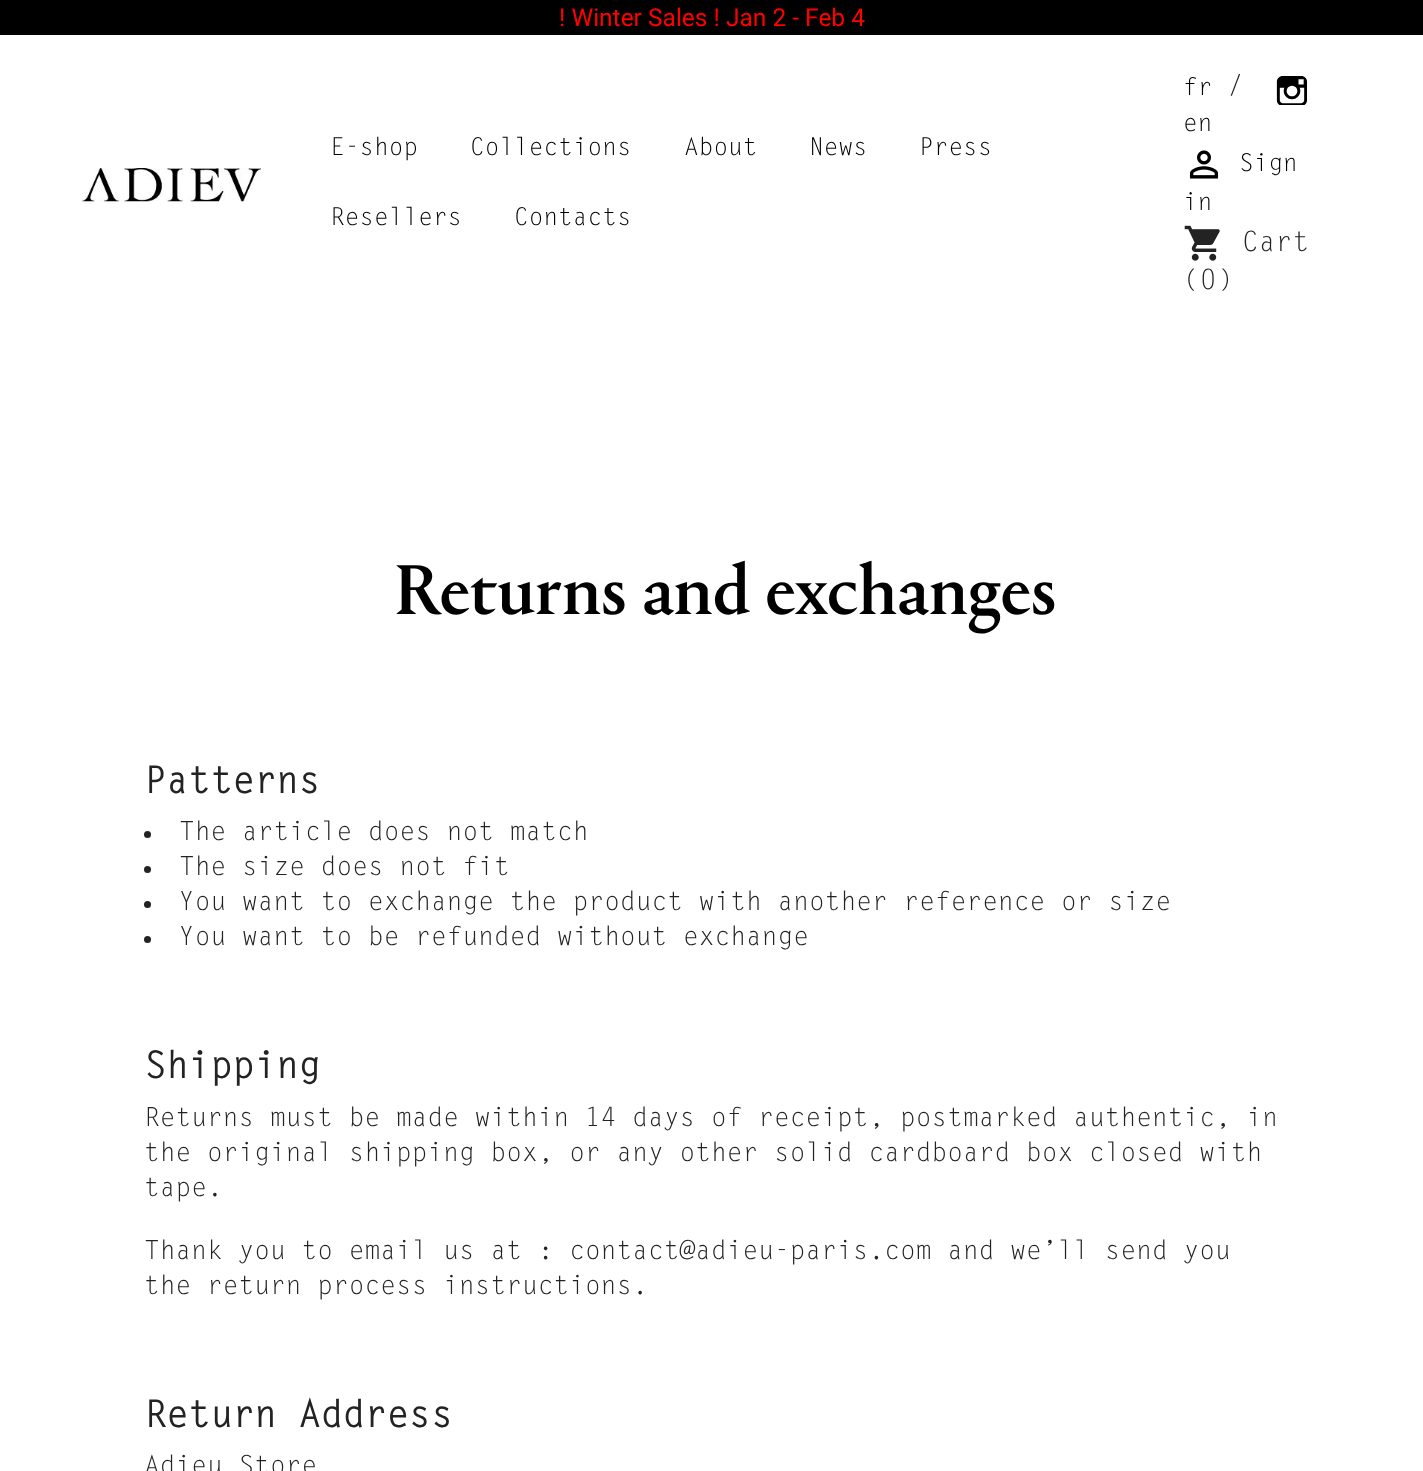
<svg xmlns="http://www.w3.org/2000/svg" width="1423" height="1471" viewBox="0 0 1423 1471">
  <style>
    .t1 { font: 24.5px Roboto; fill: #f00; }
    .t2 { font: 24.5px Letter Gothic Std; fill: #000; }
    .t3 { font: 28px Letter Gothic Std; fill: #232323; }
    .t4 { font: 500 73.5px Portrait; fill: #000; }
    .t5 { font: bold 36.75px Letter Gothic Std; fill: #232323; }
    .t6 { font: 26.25px Letter Gothic Std; fill: #232323; }
  </style>
  <rect width="100%" height="100%" fill="#fff"/>
  <rect x="0" y="0" width="1423" height="35" fill="#000"/>
  <text x="559" y="26" class="t1">! Winter Sales ! Jan 2 - Feb 4</text>
  <image x="82" y="168" width="179" height="34" href="images/1.png"/>
  <text x="330" y="155" class="t2">E-shop</text>
  <text x="470" y="155" class="t2">Collections</text>
  <text x="684" y="155" class="t2">About</text>
  <text x="809" y="155" class="t2">News</text>
  <text x="919" y="155" class="t2">Press</text>
  <text x="330" y="225" class="t2">Resellers</text>
  <text x="514" y="225" class="t2">Contacts</text>
  <text x="1183" y="95" class="t2">fr</text>
  <text x="1227" y="95" class="t3">/</text>
  <text x="1183" y="131" class="t2">en</text>
  <image x="1276" y="76" width="31" height="29" href="images/2.png"/>
  <image x="1189" y="150" width="30" height="29" href="images/3.png"/>
  <text x="1239" y="171" class="t2">Sign</text>
  <text x="1183" y="210" class="t2">in</text>
  <image x="1184" y="225" width="36" height="36" href="images/4.png"/>
  <text x="1242" y="251" class="t3">Cart</text>
  <text x="1183" y="289" class="t3">(0)</text>
  <text x="394" y="614" class="t4">Returns and exchanges</text>
  <text x="144" y="793" class="t5">Patterns</text>
  <circle cx="147.5" cy="834.5" r="3.5" fill="#232323"/>
  <text x="179" y="840" class="t6">The article does not match</text>
  <circle cx="147.5" cy="869.5" r="3.5" fill="#232323"/>
  <text x="179" y="875" class="t6">The size does not fit</text>
  <circle cx="147.5" cy="904.5" r="3.5" fill="#232323"/>
  <text x="179" y="910" class="t6">You want to exchange the product with another reference or size</text>
  <circle cx="147.5" cy="939.5" r="3.5" fill="#232323"/>
  <text x="179" y="945" class="t6">You want to be refunded without exchange</text>
  <text x="144" y="1078" class="t5">Shipping</text>
  <text x="144" y="1126" class="t6">Returns must be made within 14 days of receipt, postmarked authentic, in</text>
  <text x="144" y="1161" class="t6">the original shipping box, or any other solid cardboard box closed with</text>
  <text x="144" y="1196" class="t6">tape.</text>
  <text x="144" y="1259" class="t6">Thank you to email us at : contact@adieu-paris.com and we’ll send you</text>
  <text x="144" y="1294" class="t6">the return process instructions.</text>
  <text x="144" y="1427" class="t5">Return Address</text>
  <text x="144" y="1474" class="t6">Adieu Store</text>
</svg>
